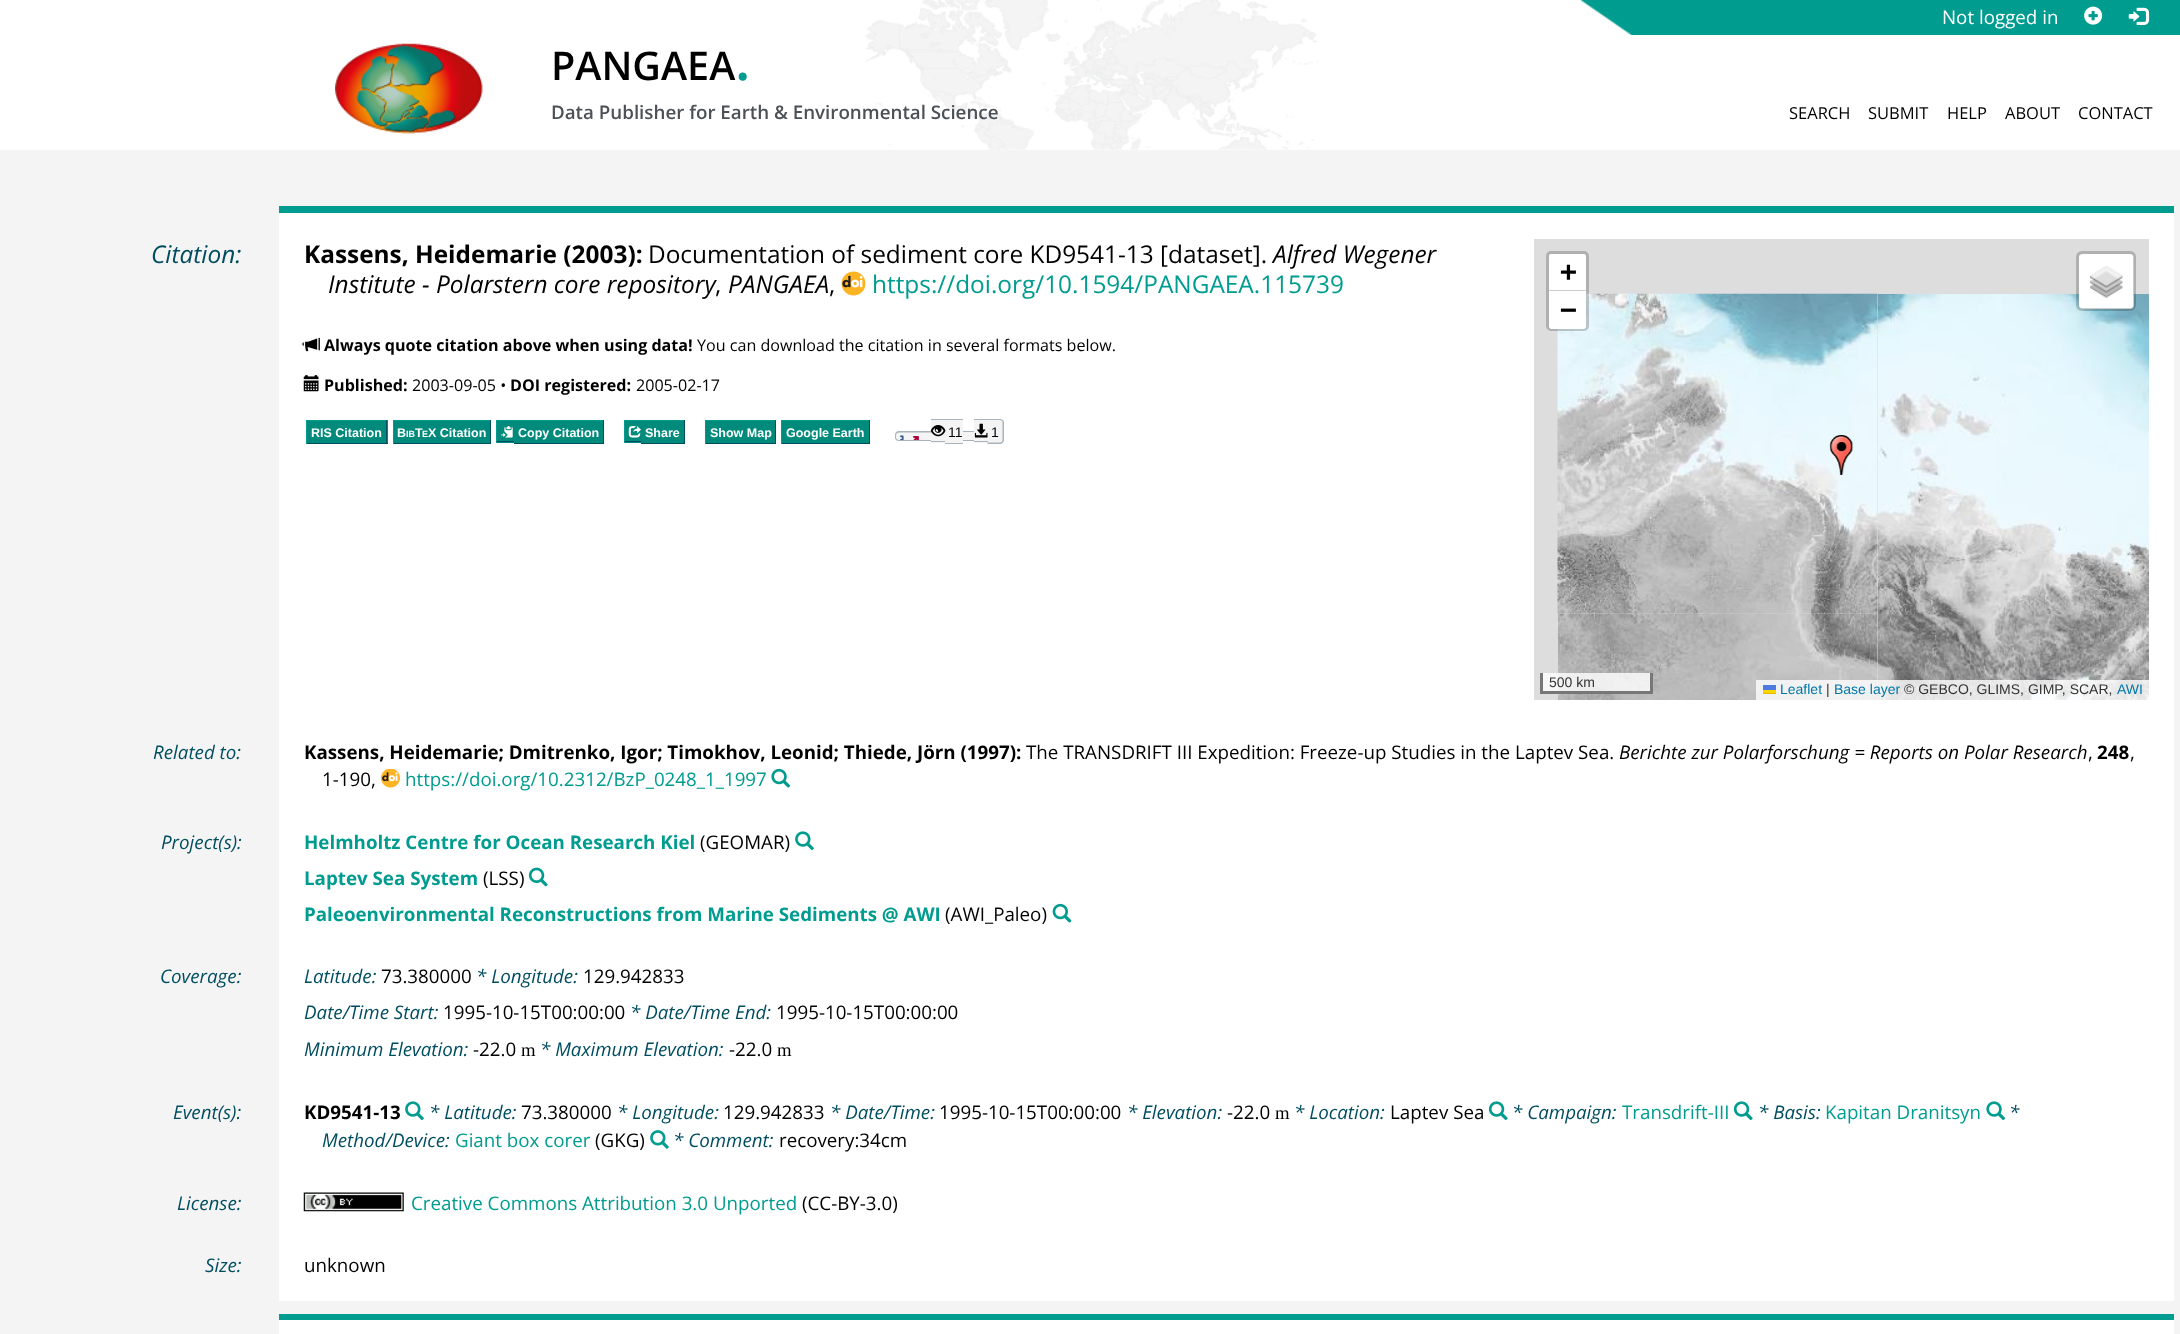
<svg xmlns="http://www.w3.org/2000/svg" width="2180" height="1334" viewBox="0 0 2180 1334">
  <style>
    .t1 { font: 18.75px Open Sans; fill: #fff; }
    .t2 { font: 600 39.5px Open Sans; fill: #000; }
    .t3 { font: 600 56px Open Sans; fill: #009c8f; }
    .t4 { font: 600 18.75px Open Sans; fill: #4b5157; }
    .t5 { font: 16.5px Open Sans; fill: #000; }
    .t6 { font: italic 24.4px Open Sans; fill: #004d60; }
    .t7 { font: bold 24.4px Open Sans; fill: #000; }
    .t8 { font: 24.4px Open Sans; fill: #000; }
    .t9 { font: italic 24.4px Open Sans; fill: #000; }
    .t10 { font: 24.4px Open Sans; fill: #009c8f; }
    .t11 { font: bold 28px DejaVu Sans Mono; fill: #000; }
    .t12 { font: 14px Liberation Sans; fill: #333; }
    .t13 { font: 14px Liberation Sans; fill: #0078a8; }
    .t14 { font: bold 16.1px Open Sans; fill: #000; }
    .t15 { font: 16.1px Open Sans; fill: #000; }
    .t16 { font: bold 12.5px Liberation Sans; fill: #fff; }
    .t17 { font: bold 9px Liberation Sans; fill: #fff; }
    .t18 { font: 14px Liberation Sans; fill: #000; }
    .t19 { font: italic 18.75px Open Sans; fill: #004d60; }
    .t20 { font: bold 18.75px Open Sans; fill: #000; }
    .t21 { font: 18.75px Open Sans; fill: #000; }
    .t22 { font: italic 18.75px Open Sans; fill: #000; }
    .t23 { font: 18.75px Open Sans; fill: #009c8f; }
    .t24 { font: bold 18.75px Open Sans; fill: #009c8f; }
    .t25 { font: 18.75px Liberation Serif; fill: #000; }
  </style>
  <rect width="100%" height="100%" fill="#f4f4f4"/>
  <rect x="0" y="0" width="2180" height="150" fill="#fff"/>
  <image x="865" y="0" width="453" height="150" href="images/1.png"/>
  <image x="1580" y="0" width="600" height="35" href="images/2.png"/>
  <text x="1942" y="24" class="t1">Not logged in</text>
  <image x="2084" y="6" width="19" height="19" href="images/3.png"/>
  <image x="2128" y="7" width="22" height="18" href="images/4.png"/>
  <image x="335" y="43" width="148" height="91" href="images/5.png"/>
  <text x="551" y="80" class="t2">PANGAEA</text>
  <text x="735" y="80" class="t3">.</text>
  <text x="551" y="119" class="t4">Data Publisher for Earth &amp; Environmental Science</text>
  <text x="1789" y="119" class="t5">SEARCH</text>
  <text x="1868" y="119" class="t5">SUBMIT</text>
  <text x="1947" y="119" class="t5">HELP</text>
  <text x="2005" y="119" class="t5">ABOUT</text>
  <text x="2078" y="119" class="t5">CONTACT</text>
  <text x="151" y="263" class="t6">Citation:</text>
  <rect x="279" y="213" width="1895" height="1088" fill="#fff"/>
  <rect x="279" y="206" width="1895" height="7" fill="#009c8f"/>
  <text x="304" y="263" class="t7">Kassens, Heidemarie (2003):</text>
  <text x="648" y="263" class="t8">Documentation of sediment core KD9541-13 [dataset].</text>
  <text x="1273" y="263" class="t9">Alfred Wegener</text>
  <text x="328" y="293" class="t9">Institute - Polarstern core repository</text>
  <text x="715" y="293" class="t8">,</text>
  <text x="728" y="293" class="t9">PANGAEA</text>
  <text x="829" y="293" class="t8">,</text>
  <image x="841" y="271" width="25" height="25" href="images/6.png"/>
  <text x="872" y="293" class="t10">https://doi.org/10.1594/PANGAEA.115739</text>
  <rect x="1534" y="239" width="615" height="461" fill="#ddd"/>
  <image x="1557" y="293" width="321" height="321" href="images/8.png"/>
  <rect x="1547.5" y="252.5" width="40" height="77" rx="3.5" fill="none" stroke="#00000033" stroke-width="3"/>
  <path d="M1551.5 254H1583.5C1585 254 1586 255 1586 256.5V291H1549V256.5C1549 255 1550 254 1551.5 254Z" fill="#fff"/>
  <rect x="1549" y="290" width="37" height="1" fill="#ccc"/>
  <text x="1560" y="281" class="t11">+</text>
  <path d="M1549 291H1586V326.5C1586 328 1585 329 1583.5 329H1551.5C1550 329 1549 328 1549 326.5Z" fill="#fff"/>
  <text x="1560" y="319" class="t11">−</text>
  <image x="1878" y="294" width="271" height="320" href="images/9.png"/>
  <rect x="2079" y="254" width="55" height="55" rx="4" fill="#fff"/>
  <rect x="2077.5" y="252.5" width="57" height="57" rx="4.5" fill="none" stroke="#00000033" stroke-width="3"/>
  <image x="2090" y="266" width="33" height="32" href="images/7.png"/>
  <image x="1558" y="614" width="320" height="86" href="images/10.png"/>
  <rect x="1543" y="673" width="107" height="18" fill="#ffffffcc"/>
  <rect x="1650" y="673" width="3" height="21" fill="#777"/>
  <rect x="1540" y="691" width="113" height="3" fill="#777"/>
  <rect x="1540" y="673" width="3" height="21" fill="#777"/>
  <text x="1549" y="687" class="t12">500 km</text>
  <image x="1878" y="614" width="271" height="86" href="images/11.png"/>
  <rect x="1756" y="680" width="393" height="20" fill="#ffffffcc"/>
  <text x="1780" y="694" class="t13">Leaflet</text>
  <rect x="1763" y="685" width="13" height="5" fill="#4c7be1"/>
  <rect x="1763" y="690" width="13" height="3" fill="#ffd500"/>
  <rect x="1763" y="693" width="13" height="1" fill="#e0bc00"/>
  <text x="1826" y="694" class="t12">|</text>
  <text x="1834" y="694" class="t13">Base layer</text>
  <text x="1904" y="694" class="t12">© GEBCO, GLIMS, GIMP, SCAR,</text>
  <text x="2117" y="694" class="t13">AWI</text>
  <image x="1829" y="435" width="25" height="40" href="images/12.png"/>
  <image x="302" y="337" width="18" height="15" href="images/13.png"/>
  <text x="324" y="351" class="t14">Always quote citation above when using data!</text>
  <text x="697" y="351" class="t15">You can download the citation in several formats below.</text>
  <image x="303" y="375" width="16" height="17" href="images/14.png"/>
  <text x="324" y="391" class="t14">Published:</text>
  <text x="412" y="391" class="t15">2003-09-05 •</text>
  <text x="510" y="391" class="t14">DOI registered:</text>
  <text x="636" y="391" class="t15">2005-02-17</text>
  <rect x="307" y="421" width="81" height="22" fill="#008a7b"/>
  <text x="311" y="437" class="t16">RIS Citation</text>
  <rect x="306" y="420" width="82" height="1" fill="#009c8f"/>
  <rect x="386" y="420" width="1" height="24" fill="#004d60"/>
  <rect x="306" y="443" width="82" height="1" fill="#004d60"/>
  <rect x="306" y="420" width="1" height="24" fill="#009c8f"/>
  <rect x="394" y="421" width="96" height="22" fill="#008a7b"/>
  <text x="397" y="437" class="t16">B</text>
  <rect x="393" y="420" width="98" height="1" fill="#009c8f"/>
  <rect x="393" y="443" width="43" height="1" fill="#004d60"/>
  <rect x="393" y="420" width="1" height="24" fill="#009c8f"/>
  <text x="406" y="437" class="t17">IB</text>
  <text x="415" y="437" class="t16">T</text>
  <text x="422" y="437" class="t17">E</text>
  <text x="428" y="437" class="t16">X Citation</text>
  <rect x="490" y="420" width="1" height="24" fill="#004d60"/>
  <rect x="436" y="443" width="55" height="1" fill="#004d60"/>
  <rect x="497" y="421" width="106" height="22" fill="#008a7b"/>
  <rect x="496" y="420" width="108" height="1" fill="#009c8f"/>
  <rect x="496" y="441" width="18" height="1" fill="#004d60"/>
  <rect x="496" y="420" width="1" height="23" fill="#009c8f"/>
  <rect x="603" y="420" width="1" height="24" fill="#004d60"/>
  <rect x="514" y="443" width="90" height="1" fill="#004d60"/>
  <image x="501" y="426" width="12" height="12" href="images/15.png"/>
  <text x="518" y="437" class="t16">Copy Citation</text>
  <rect x="625" y="421" width="59" height="22" fill="#008a7b"/>
  <rect x="624" y="420" width="61" height="1" fill="#009c8f"/>
  <rect x="624" y="441" width="17" height="1" fill="#004d60"/>
  <rect x="624" y="420" width="1" height="23" fill="#009c8f"/>
  <rect x="684" y="420" width="1" height="24" fill="#004d60"/>
  <rect x="641" y="443" width="44" height="1" fill="#004d60"/>
  <image x="628" y="426" width="13" height="12" href="images/16.png"/>
  <text x="645" y="437" class="t16">Share</text>
  <rect x="706" y="421" width="69" height="22" fill="#008a7b"/>
  <text x="710" y="437" class="t16">Show Map</text>
  <rect x="705" y="420" width="71" height="1" fill="#009c8f"/>
  <rect x="775" y="420" width="1" height="24" fill="#004d60"/>
  <rect x="705" y="443" width="71" height="1" fill="#004d60"/>
  <rect x="705" y="420" width="1" height="24" fill="#009c8f"/>
  <rect x="782" y="421" width="87" height="22" fill="#008a7b"/>
  <text x="786" y="437" class="t16">Google Earth</text>
  <rect x="781" y="420" width="89" height="1" fill="#009c8f"/>
  <rect x="869" y="420" width="1" height="24" fill="#004d60"/>
  <rect x="781" y="443" width="89" height="1" fill="#004d60"/>
  <rect x="781" y="420" width="1" height="24" fill="#009c8f"/>
  <path d="M899 431H931V441H899C897 441 895 439 895 437V435C895 433 897 431 899 431Z" fill="#f4f4f4"/>
  <image x="900" y="435" width="104" height="6" href="images/17.png"/>
  <path d="M899 431H931V441H899C896.5 441 895 439.5 895 437.5V435C895 433 896.5 431 899 431ZM899 432.5H931V440H899C897.5 440 896 439 896 437.5V435C896 433.5 897.5 432.5 899 432.5Z" fill="#a9b3bc" fill-rule="evenodd"/>
  <rect x="931" y="420" width="32" height="23" fill="#f4f4f4"/>
  <rect x="931" y="419" width="32" height="1" fill="#a9b3bc"/>
  <rect x="931" y="441" width="14" height="1" fill="#a9b3bc"/>
  <rect x="945" y="443" width="18" height="1" fill="#a9b3bc"/>
  <rect x="963" y="432" width="11" height="8" fill="#f4f4f4"/>
  <rect x="963" y="431" width="11" height="1" fill="#a9b3bc"/>
  <rect x="963" y="440" width="11" height="1" fill="#a9b3bc"/>
  <rect x="974" y="420" width="14" height="23" fill="#f4f4f4"/>
  <rect x="974" y="419" width="14" height="1" fill="#a9b3bc"/>
  <rect x="974" y="441" width="14" height="1" fill="#a9b3bc"/>
  <path d="M988 419H1000C1002 419 1004 421 1004 423V440C1004 442 1002 444 1000 444H988Z" fill="#f4f4f4"/>
  <path d="M987.5 419H1000C1002 419 1004 420.5 1004 422.5V440C1004 442 1002 444 1000 444H987.5ZM987.5 420H1000C1001.5 420 1002.5 421 1002.5 422.5V440C1002.5 441.5 1001.5 442.5 1000 442.5H987.5Z" fill="#a9b3bc" fill-rule="evenodd"/>
  <image x="930" y="425" width="16" height="12" href="images/18.png"/>
  <text x="948" y="437" class="t18">11</text>
  <image x="974" y="423" width="14" height="15" href="images/19.png"/>
  <text x="991" y="437" class="t18">1</text>
  <text x="153" y="759" class="t19">Related to:</text>
  <text x="304" y="759" class="t20">Kassens, Heidemarie; Dmitrenko, Igor; Timokhov, Leonid; Thiede, Jörn (1997):</text>
  <text x="1026" y="759" class="t21">The TRANSDRIFT III Expedition: Freeze-up Studies in the Laptev Sea.</text>
  <text x="1619" y="759" class="t22">Berichte zur Polarforschung = Reports on Polar Research</text>
  <text x="2088" y="759" class="t21">,</text>
  <text x="2097" y="759" class="t20">248</text>
  <text x="2130" y="759" class="t21">,</text>
  <text x="322" y="786" class="t21">1-190,</text>
  <image x="381" y="769" width="19" height="19" href="images/20.png"/>
  <text x="405" y="786" class="t23">https://doi.org/10.2312/BzP_0248_1_1997</text>
  <image x="771" y="768" width="20" height="20" href="images/21.png"/>
  <text x="161" y="849" class="t19">Project(s):</text>
  <text x="304" y="849" class="t24">Helmholtz Centre for Ocean Research Kiel</text>
  <text x="700" y="849" class="t21">(GEOMAR)</text>
  <image x="795" y="831" width="19" height="20" href="images/22.png"/>
  <text x="304" y="885" class="t24">Laptev Sea System</text>
  <text x="483" y="885" class="t21">(LSS)</text>
  <image x="528" y="867" width="20" height="20" href="images/23.png"/>
  <text x="304" y="921" class="t24">Paleoenvironmental Reconstructions from Marine Sediments @ AWI</text>
  <text x="945" y="921" class="t21">(AWI_Paleo)</text>
  <image x="1052" y="903" width="20" height="20" href="images/24.png"/>
  <text x="160" y="983" class="t19">Coverage:</text>
  <text x="304" y="983" class="t19">Latitude:</text>
  <text x="381" y="983" class="t21">73.380000</text>
  <text x="476" y="983" class="t19">* Longitude:</text>
  <text x="583" y="983" class="t21">129.942833</text>
  <text x="304" y="1019" class="t19">Date/Time Start:</text>
  <text x="443" y="1019" class="t21">1995-10-15T00:00:00</text>
  <text x="630" y="1019" class="t19">* Date/Time End:</text>
  <text x="776" y="1019" class="t21">1995-10-15T00:00:00</text>
  <text x="304" y="1056" class="t19">Minimum Elevation:</text>
  <text x="473" y="1056" class="t21">-22.0</text>
  <text x="521" y="1056" class="t25">m</text>
  <text x="540" y="1056" class="t19">* Maximum Elevation:</text>
  <text x="729" y="1056" class="t21">-22.0</text>
  <text x="777" y="1056" class="t25">m</text>
  <text x="173" y="1119" class="t19">Event(s):</text>
  <text x="304" y="1119" class="t20">KD9541-13</text>
  <image x="405" y="1101" width="19" height="20" href="images/22.png"/>
  <text x="429" y="1119" class="t19">* Latitude:</text>
  <text x="521" y="1119" class="t21">73.380000</text>
  <text x="617" y="1119" class="t19">* Longitude:</text>
  <text x="723" y="1119" class="t21">129.942833</text>
  <text x="830" y="1119" class="t19">* Date/Time:</text>
  <text x="939" y="1119" class="t21">1995-10-15T00:00:00</text>
  <text x="1127" y="1119" class="t19">* Elevation:</text>
  <text x="1227" y="1119" class="t21">-22.0</text>
  <text x="1275" y="1119" class="t25">m</text>
  <text x="1294" y="1119" class="t19">* Location:</text>
  <text x="1390" y="1119" class="t21">Laptev Sea</text>
  <image x="1488" y="1101" width="20" height="20" href="images/25.png"/>
  <text x="1512" y="1119" class="t19">* Campaign:</text>
  <text x="1622" y="1119" class="t23">Transdrift-III</text>
  <image x="1733" y="1101" width="20" height="20" href="images/25.png"/>
  <text x="1758" y="1119" class="t19">* Basis:</text>
  <text x="1825" y="1119" class="t23">Kapitan Dranitsyn</text>
  <image x="1986" y="1101" width="20" height="20" href="images/26.png"/>
  <text x="2009" y="1119" class="t19">*</text>
  <text x="322" y="1147" class="t19">Method/Device:</text>
  <text x="455" y="1147" class="t23">Giant box corer</text>
  <text x="595" y="1147" class="t21">(GKG)</text>
  <image x="650" y="1130" width="19" height="19" href="images/27.png"/>
  <text x="673" y="1147" class="t19">* Comment:</text>
  <text x="779" y="1147" class="t21">recovery:34cm</text>
  <text x="177" y="1210" class="t19">License:</text>
  <image x="303" y="1192" width="101" height="20" href="images/28.png"/>
  <text x="411" y="1210" class="t23">Creative Commons Attribution 3.0 Unported</text>
  <text x="802" y="1210" class="t21">(CC-BY-3.0)</text>
  <text x="205" y="1272" class="t19">Size:</text>
  <text x="304" y="1272" class="t21">unknown</text>
  <rect x="279" y="1320" width="1895" height="14" fill="#fff"/>
  <rect x="279" y="1314" width="1895" height="6" fill="#009c8f"/>
</svg>
